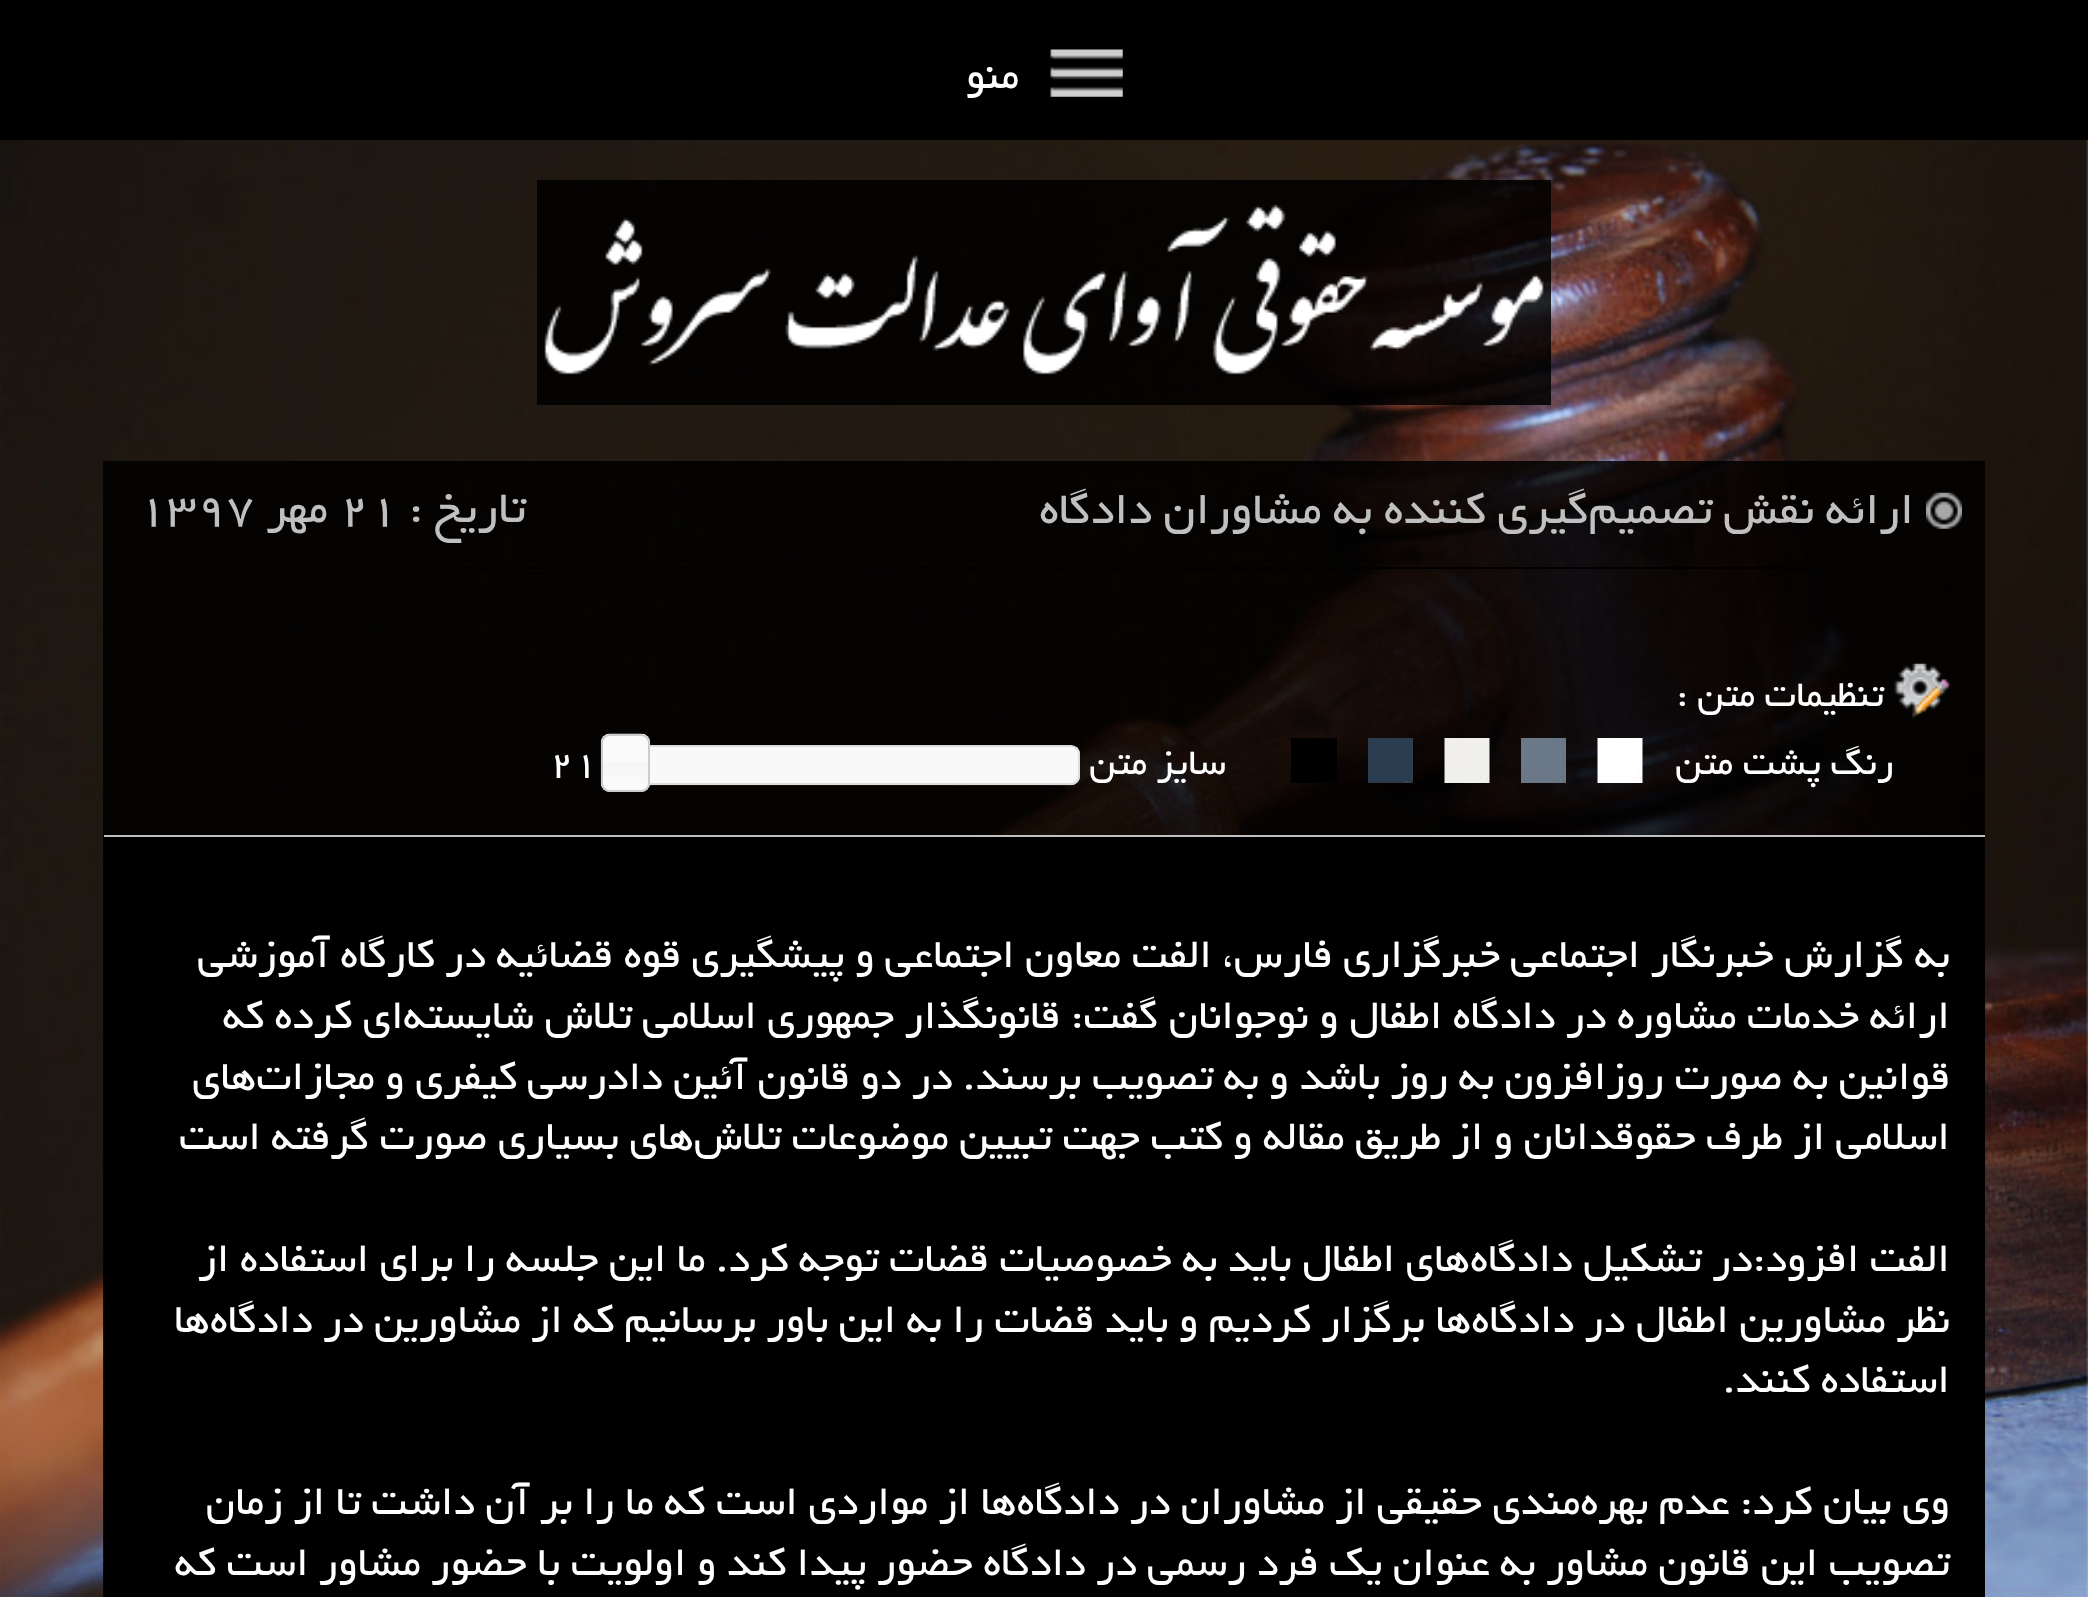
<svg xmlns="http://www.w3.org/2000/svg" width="2088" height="1597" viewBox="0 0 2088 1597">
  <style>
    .t1 { font: 45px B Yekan; direction: rtl; fill: #fff; }
    .t2 { font: 49.5px B Yekan; direction: rtl; fill: #c0c0c0; }
    .t3 { font: 49.5px B Yekan; fill: #c0c0c0; }
    .t4 { font: 40.5px B Yekan; direction: rtl; fill: #fff; }
    .t5 { font: 40.5px B Yekan; fill: #fff; }
  </style>
  <rect width="100%" height="100%" fill="#fff"/>
  <image x="0" y="140" width="2088" height="1457" href="images/1.png"/>
  <rect x="0" y="0" width="2088" height="140" fill="#000"/>
  <image x="1050" y="49" width="73" height="48" href="images/2.png"/>
  <text x="1019" y="88" class="t1">منو</text>
  <rect x="537" y="180" width="1014" height="225" fill="#000000d9"/>
  <image x="544" y="204" width="1000" height="171" href="images/3.png"/>
  <rect x="103" y="461" width="1882" height="1136" fill="#000000d9"/>
  <rect x="104" y="567" width="1881" height="2" fill="#000"/>
  <image x="1926" y="492" width="36" height="37" href="images/4.png"/>
  <text x="1914" y="523" class="t2">ارائه نقش تصمیم‌گیری کننده به مشاوران دادگاه</text>
  <text x="526" y="522" class="t2">تاریخ :</text>
  <text x="340" y="522" class="t3">21</text>
  <text x="328" y="522" class="t2">مهر</text>
  <text x="138" y="522" class="t3">1397</text>
  <rect x="104" y="835" width="1881" height="2" fill="#c0c0c0"/>
  <image x="1894" y="663" width="57" height="56" href="images/5.png"/>
  <text x="1884" y="706" class="t4">تنظیمات متن :</text>
  <text x="1894" y="774" class="t4">رنگ پشت متن</text>
  <image x="1597" y="738" width="46" height="45" href="images/6.png"/>
  <image x="1521" y="738" width="45" height="45" href="images/7.png"/>
  <image x="1444" y="738" width="46" height="45" href="images/8.png"/>
  <image x="1368" y="738" width="45" height="45" href="images/9.png"/>
  <rect x="1291" y="738" width="46" height="45" fill="#000"/>
  <text x="1226" y="774" class="t4">سایز متن</text>
  <image x="649" y="747" width="431" height="39" href="images/10.png"/>
  <rect x="627" y="746" width="452" height="38" rx="8" fill="none" stroke="#ddd" stroke-width="2"/>
  <image x="600" y="733" width="51" height="59" href="images/11.png"/>
  <rect x="602" y="735" width="47" height="56" rx="8" fill="none" stroke="#ccc" stroke-width="2"/>
  <text x="550" y="774" class="t5">21</text>
  <rect x="104" y="837" width="1881" height="760" fill="#000"/>
  <text x="1950" y="967" class="t1">به گزارش خبرنگار اجتماعی خبرگزاری فارس، الفت معاون اجتماعی و پیشگیری قوه قضائیه در کارگاه آموزشی</text>
  <text x="1950" y="1028" class="t1">ارائه خدمات مشاوره در دادگاه اطفال و نوجوانان گفت: قانونگذار جمهوری اسلامی تلاش شایسته‌ای کرده که</text>
  <text x="1950" y="1089" class="t1">قوانین به صورت روزافزون به روز باشد و به تصویب برسند. در دو قانون آئین دادرسی کیفری و مجازات‌های</text>
  <text x="1950" y="1149" class="t1">اسلامی از طرف حقوقدانان و از طریق مقاله و کتب جهت تبیین موضوعات تلاش‌های بسیاری صورت گرفته است</text>
  <text x="1950" y="1271" class="t1">الفت افزود:‌در تشکیل دادگاه‌های اطفال باید به خصوصیات قضات توجه کرد. ما این جلسه را برای استفاده از</text>
  <text x="1950" y="1332" class="t1">نظر مشاورین اطفال در دادگاه‌ها برگزار کردیم و باید قضات را به این باور برسانیم که از مشاورین در دادگاه‌ها</text>
  <text x="1950" y="1392" class="t1">استفاده کنند.</text>
  <text x="1950" y="1514" class="t1">وی بیان کرد: عدم بهره‌مندی حقیقی از مشاوران در دادگاه‌ها از مواردی است که ما را بر آن داشت تا از زمان</text>
  <text x="1950" y="1575" class="t1">تصویب این قانون مشاور به عنوان یک فرد رسمی در دادگاه حضور پیدا کند و اولویت با حضور مشاور است که</text>
</svg>
